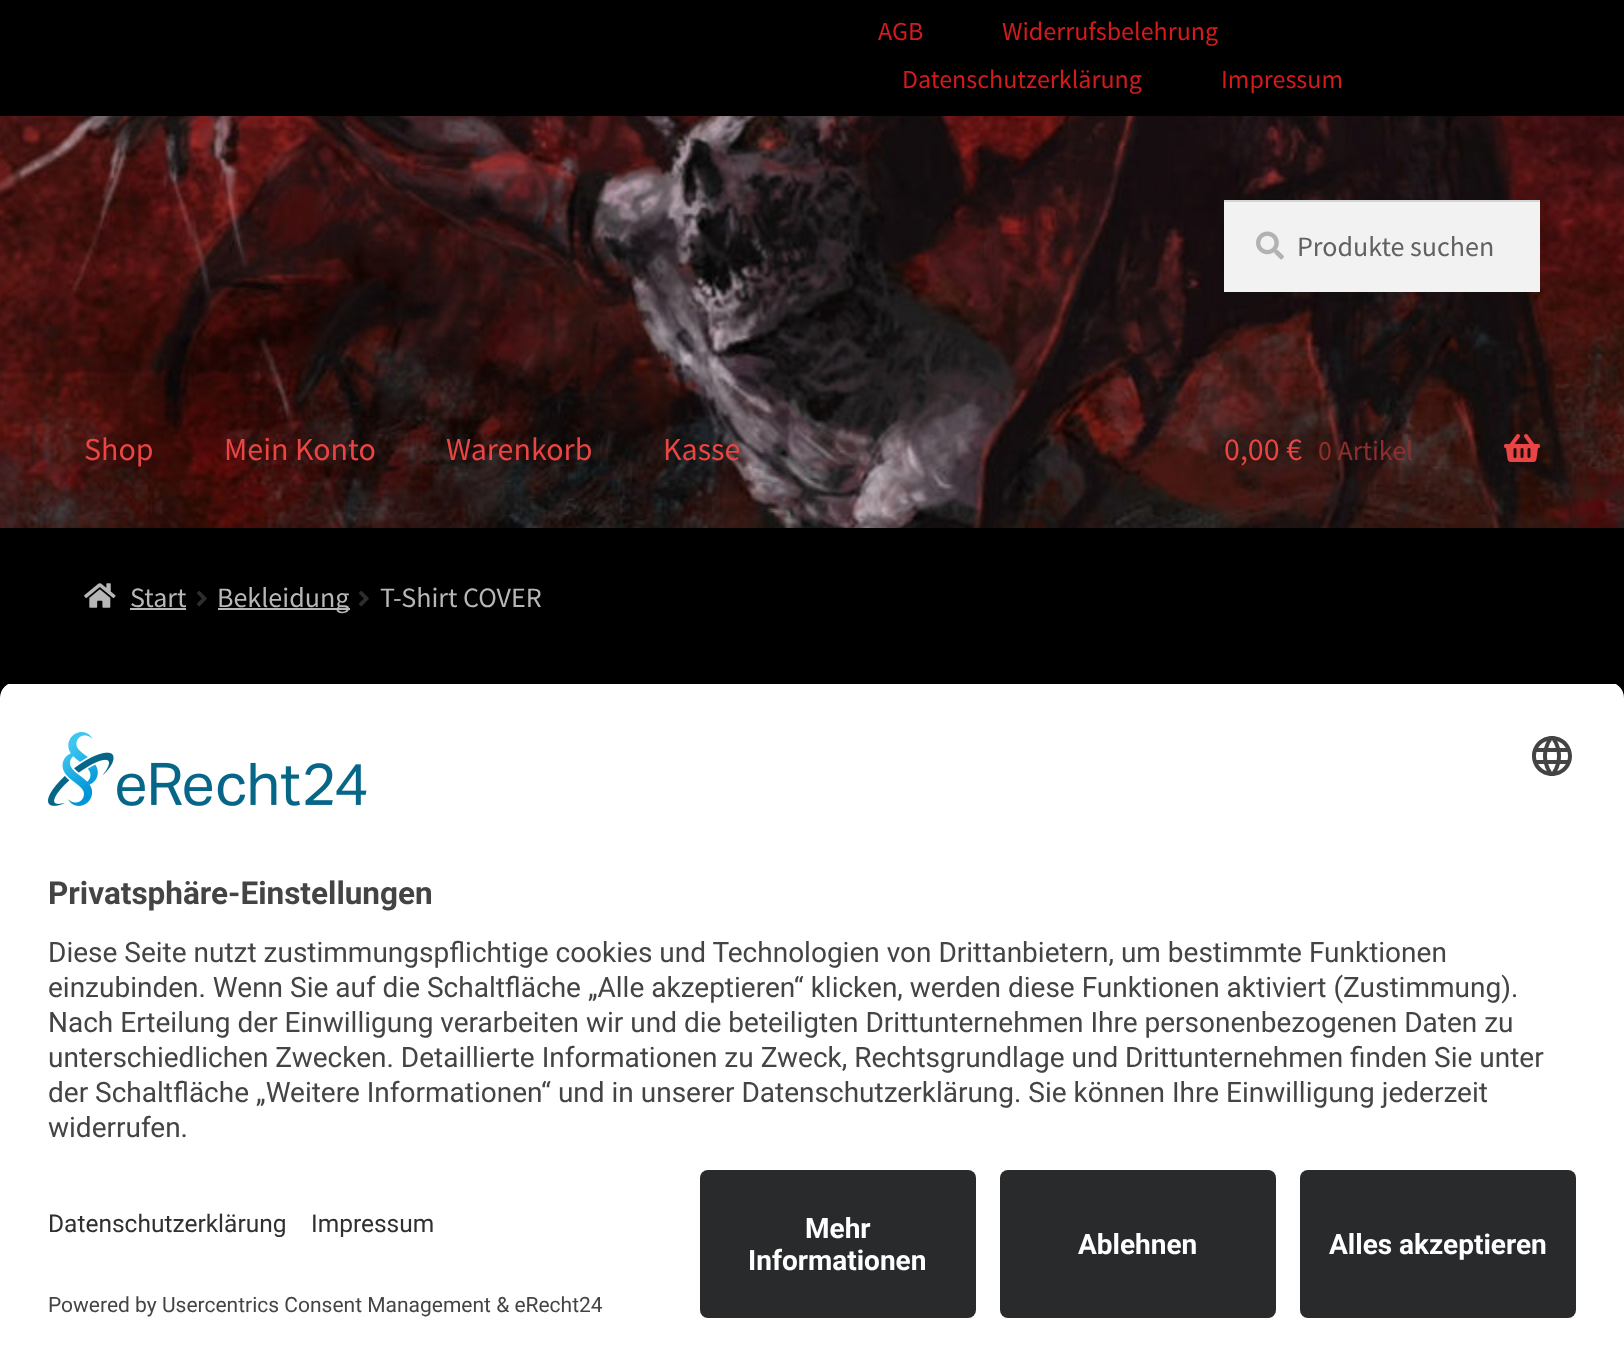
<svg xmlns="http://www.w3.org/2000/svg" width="1624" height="1365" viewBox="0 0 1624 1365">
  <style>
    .t1 { font: 26px Source Sans Pro; fill: #d31b1b; }
    .t2 { font: 28px Source Sans Pro; fill: #616161; }
    .t3 { font: 32px Source Sans Pro; fill: #ea4444; }
    .t4 { font: 28px Source Sans Pro; fill: #8c2f2e; }
    .t5 { font: 28px Source Sans Pro; fill: #b7b7b7; }
    .t6 { font: bold 31.5px Roboto; fill: #444; }
    .t7 { font: 28px Roboto; fill: #444; }
    .t8 { font: 24.5px Roboto; fill: #303030; }
    .t9 { font: 21px Roboto; fill: #444; }
    .t10 { font: bold 28px Roboto; fill: #fff; }
  </style>
  <defs>
    <clipPath id="clip1"><path d="M16 682H1608C1617 682 1624 689 1624 698V1154H0V698C0 689 7 682 16 682Z"/></clipPath>
  </defs>
  <rect width="100%" height="100%" fill="#000"/>
  <text x="878" y="40" class="t1">AGB</text>
  <text x="1002" y="40" class="t1">Widerrufsbelehrung</text>
  <text x="902" y="88" class="t1">Datenschutzerklärung</text>
  <text x="1221" y="88" class="t1">Impressum</text>
  <image x="0" y="116" width="1624" height="412" href="images/1.png"/>
  <rect x="1224" y="202" width="316" height="90" fill="#f2f2f2"/>
  <image x="1256" y="231" width="28" height="29" href="images/2.png"/>
  <rect x="1224" y="200" width="316" height="2" fill="#d4d4d4"/>
  <text x="1297" y="256" class="t2">Produkte suchen</text>
  <text x="84" y="460" class="t3">Shop</text>
  <text x="224" y="460" class="t3">Mein Konto</text>
  <text x="446" y="460" class="t3">Warenkorb</text>
  <text x="663" y="460" class="t3">Kasse</text>
  <text x="1224" y="460" class="t3">0,00 €</text>
  <text x="1318" y="460" class="t4">0 Artikel</text>
  <image x="1504" y="434" width="36" height="28" href="images/3.png"/>
  <image x="84" y="583" width="32" height="25" href="images/4.png"/>
  <text x="130" y="607" class="t5">Start</text>
  <rect x="130" y="608" width="56" height="2" fill="#b7b7b7"/>
  <image x="197" y="591" width="10" height="16" href="images/5.png"/>
  <rect x="218" y="608" width="132" height="2" fill="#b7b7b7"/>
  <text x="217" y="607" class="t5">Bekleidung</text>
  <image x="359" y="591" width="10" height="16" href="images/5.png"/>
  <text x="380" y="607" class="t5">T-Shirt COVER</text>
  <g clip-path="url(#clip1)">
    <rect x="0" y="684" width="1624" height="470" fill="#fff"/>
  </g>
  <image x="48" y="732" width="319" height="74" href="images/6.png"/>
  <image x="1532" y="736" width="40" height="40" href="images/7.png"/>
  <text x="48" y="904" class="t6">Privatsphäre-Einstellungen</text>
  <text x="48" y="962" class="t7">Diese Seite nutzt zustimmungspflichtige cookies und Technologien von Drittanbietern, um bestimmte Funktionen</text>
  <text x="48" y="997" class="t7">einzubinden. Wenn Sie auf die Schaltfläche „Alle akzeptieren“ klicken, werden diese Funktionen aktiviert (Zustimmung).</text>
  <text x="48" y="1032" class="t7">Nach Erteilung der Einwilligung verarbeiten wir und die beteiligten Drittunternehmen Ihre personenbezogenen Daten zu</text>
  <text x="48" y="1067" class="t7">unterschiedlichen Zwecken. Detaillierte Informationen zu Zweck, Rechtsgrundlage und Drittunternehmen finden Sie unter</text>
  <text x="48" y="1102" class="t7">der Schaltfläche „Weitere Informationen“ und in unserer Datenschutzerklärung. Sie können Ihre Einwilligung jederzeit</text>
  <text x="48" y="1137" class="t7">widerrufen.</text>
  <rect x="0" y="1154" width="1624" height="211" fill="#fff"/>
  <text x="48" y="1232" class="t8">Datenschutzerklärung</text>
  <text x="311" y="1232" class="t8">Impressum</text>
  <text x="48" y="1312" class="t9">Powered by Usercentrics Consent Management &amp; eRecht24</text>
  <rect x="700" y="1170" width="276" height="148" rx="8" fill="#292a2b"/>
  <text x="805" y="1238" class="t10">Mehr</text>
  <text x="748" y="1270" class="t10">Informationen</text>
  <rect x="1000" y="1170" width="276" height="148" rx="8" fill="#292a2b"/>
  <text x="1078" y="1254" class="t10">Ablehnen</text>
  <rect x="1300" y="1170" width="276" height="148" rx="8" fill="#292a2b"/>
  <text x="1329" y="1254" class="t10">Alles akzeptieren</text>
</svg>
